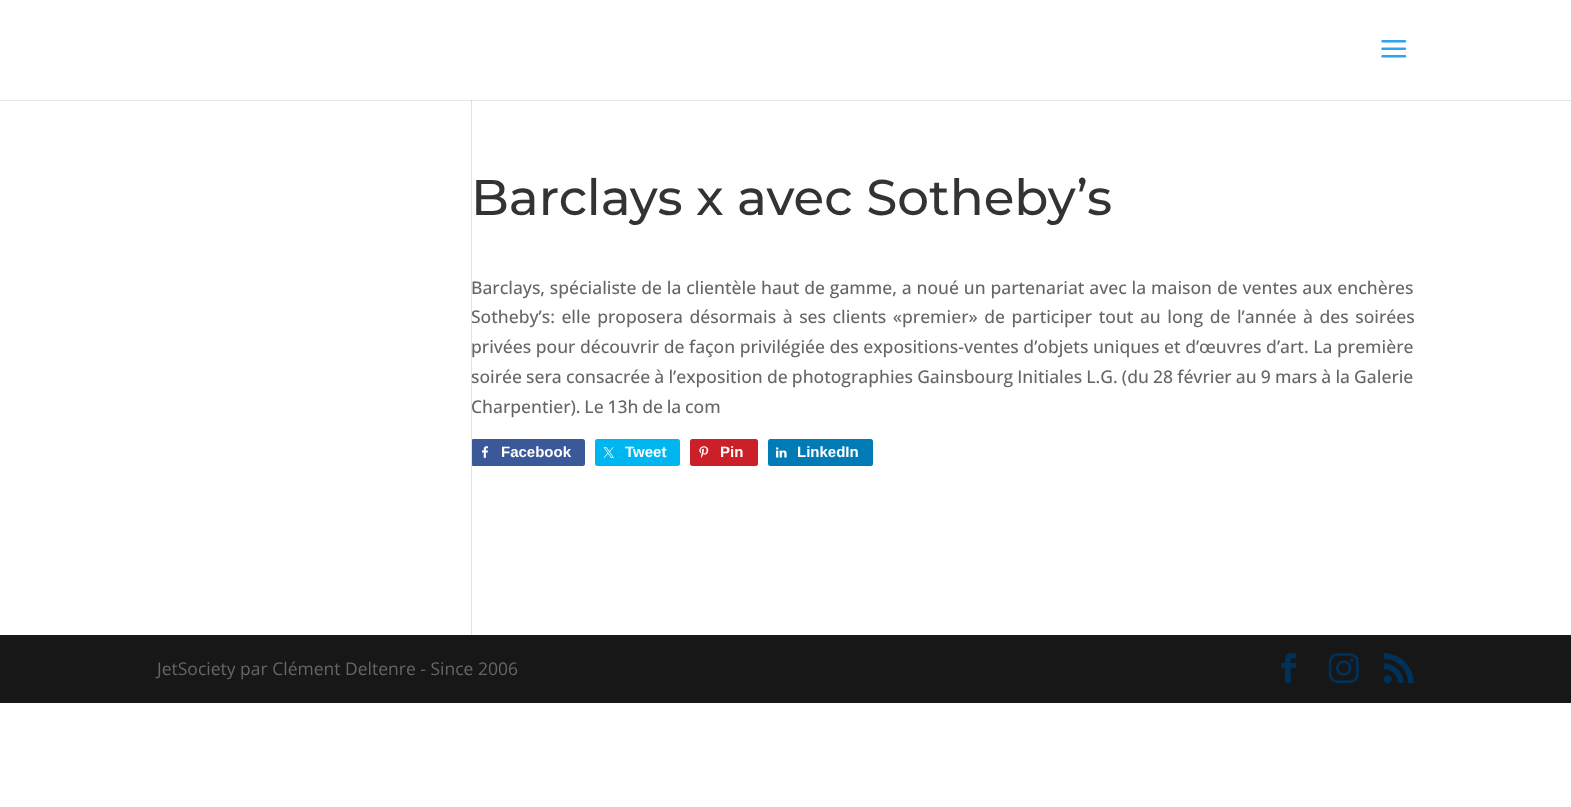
<svg xmlns="http://www.w3.org/2000/svg" width="1571" height="807" viewBox="0 0 1571 807">
  <style>
    .t1 { font: 500 50px Montserrat; fill: #333; }
    .t2 { font: 500 17.5px Open Sans; fill: #666; }
    .t3 { font: bold 15px Liberation Sans; fill: #fff; }
    .t4 { font: 17.5px Open Sans; fill: #666; }
  </style>
  <rect width="100%" height="100%" fill="#fff"/>
  <rect x="0" y="100" width="1571" height="1" fill="#e6e6e6"/>
  <image x="1381" y="40" width="26" height="18" href="images/1.png"/>
  <rect x="471" y="439" width="114" height="27" rx="2.5" fill="#3b5998"/>
  <rect x="471" y="100" width="1" height="535" fill="#e2e2e2"/>
  <rect x="471" y="100" width="1" height="1" fill="#cbcbcb"/>
  <text x="471" y="215" class="t1">Barclays x avec Sotheby’s</text>
  <text x="471" y="294" word-spacing="0.3" class="t2">Barclays, spécialiste de la clientèle haut de gamme, a noué un partenariat avec la maison de ventes aux enchères</text>
  <text x="471" y="323" word-spacing="2" class="t2">Sotheby’s: elle proposera désormais à ses clients «premier» de participer tout au long de l’année à des soirées</text>
  <text x="471" y="353" class="t2">privées pour découvrir de façon privilégiée des expositions-ventes d’objets uniques et d’œuvres d’art. La première</text>
  <text x="471" y="383" word-spacing="-0.4" class="t2">soirée sera consacrée à l’exposition de photographies Gainsbourg Initiales L.G. (du 28 février au 9 mars à la Galerie</text>
  <text x="471" y="413" word-spacing="-0.75" class="t2">Charpentier). Le 13h de la com</text>
  <image x="482" y="446" width="6" height="12" href="images/2.png"/>
  <text x="501" y="457" class="t3">Facebook</text>
  <rect x="595" y="439" width="85" height="27" rx="2.5" fill="#00b6f1"/>
  <image x="603" y="447" width="11" height="11" href="images/3.png"/>
  <text x="625" y="457" class="t3">Tweet</text>
  <rect x="690" y="439" width="68" height="27" rx="2.5" fill="#cb2027"/>
  <image x="699" y="446" width="10" height="12" href="images/4.png"/>
  <text x="720" y="457" class="t3">Pin</text>
  <rect x="768" y="439" width="105" height="27" rx="2.5" fill="#007bb6"/>
  <image x="775" y="447" width="12" height="11" href="images/5.png"/>
  <text x="797" y="457" class="t3">LinkedIn</text>
  <rect x="0" y="635" width="1571" height="68" fill="#171717"/>
  <text x="157" y="675" class="t4">JetSociety par Clément Deltenre - Since 2006</text>
  <image x="1281" y="653" width="16" height="31" href="images/6.png"/>
  <image x="1328" y="653" width="31" height="31" href="images/7.png"/>
  <image x="1383" y="653" width="31" height="31" href="images/8.png"/>
</svg>
